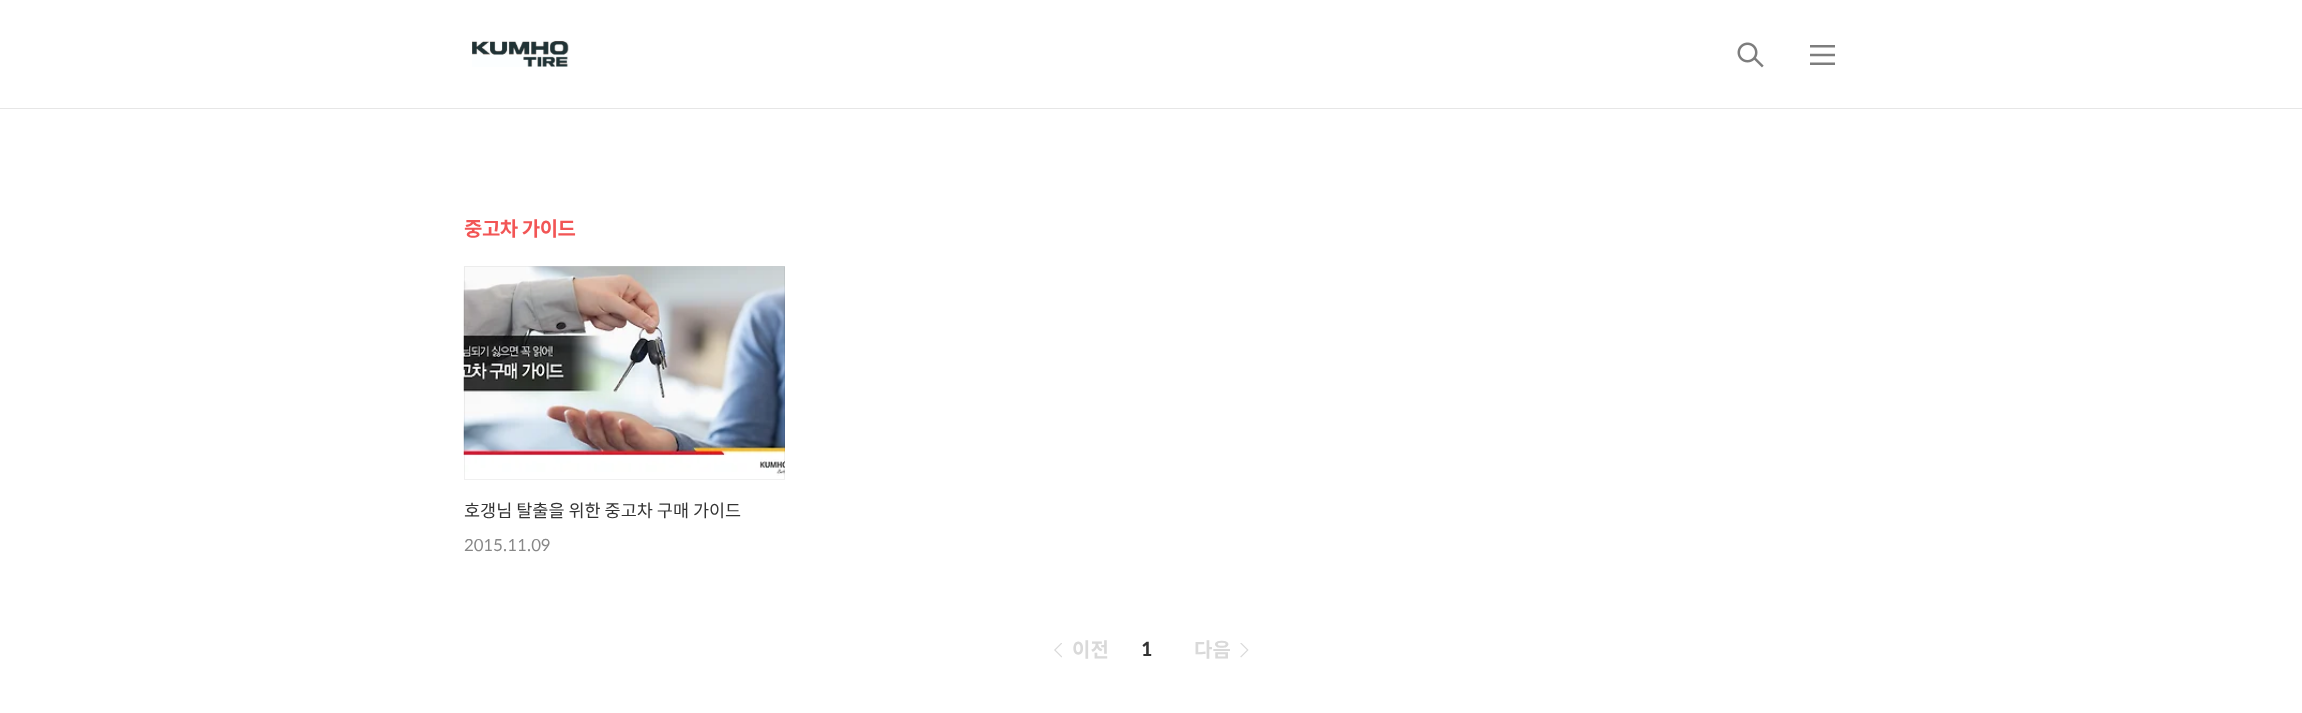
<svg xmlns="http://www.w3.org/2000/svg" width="2302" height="713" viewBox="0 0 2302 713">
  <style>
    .t1 { font: bold 20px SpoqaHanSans; letter-spacing: -0.5px; fill: #f25555; }
    .t2 { font: 17.5px SpoqaHanSans; fill: #333; }
    .t3 { font: 16.25px SpoqaHanSans; fill: #888; }
    .t4 { font: bold 20px SpoqaHanSans; fill: #d9d9d9; }
    .t5 { font: bold 19px SpoqaHanSans; fill: #333; }
  </style>
  <rect width="100%" height="100%" fill="#fff"/>
  <path d="M0 108V109H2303V1H2302V108Z" fill="#e6e6e6"/>
  <image x="472" y="40" width="97" height="27" href="images/1.png"/>
  <image x="1737" y="42" width="27" height="26" href="images/2.png"/>
  <image x="1810" y="45" width="25" height="20" href="images/3.png"/>
  <text x="464" y="236" class="t1">중고차 가이드</text>
  <image x="463" y="266" width="322" height="210" href="images/4.png"/>
  <rect x="464.5" y="266.5" width="320" height="213" fill="none" stroke="#0000000f"/>
  <text x="464" y="517" class="t2">호갱님 탈출을 위한 중고차 구매 가이드</text>
  <text x="464" y="551" class="t3">2015.11.09</text>
  <image x="1054" y="643" width="8" height="15" href="images/5.png"/>
  <text x="1072" y="657" class="t4">이전</text>
  <text x="1141" y="656" class="t5">1</text>
  <text x="1194" y="657" class="t4">다음</text>
  <image x="1240" y="643" width="9" height="15" href="images/6.png"/>
</svg>
